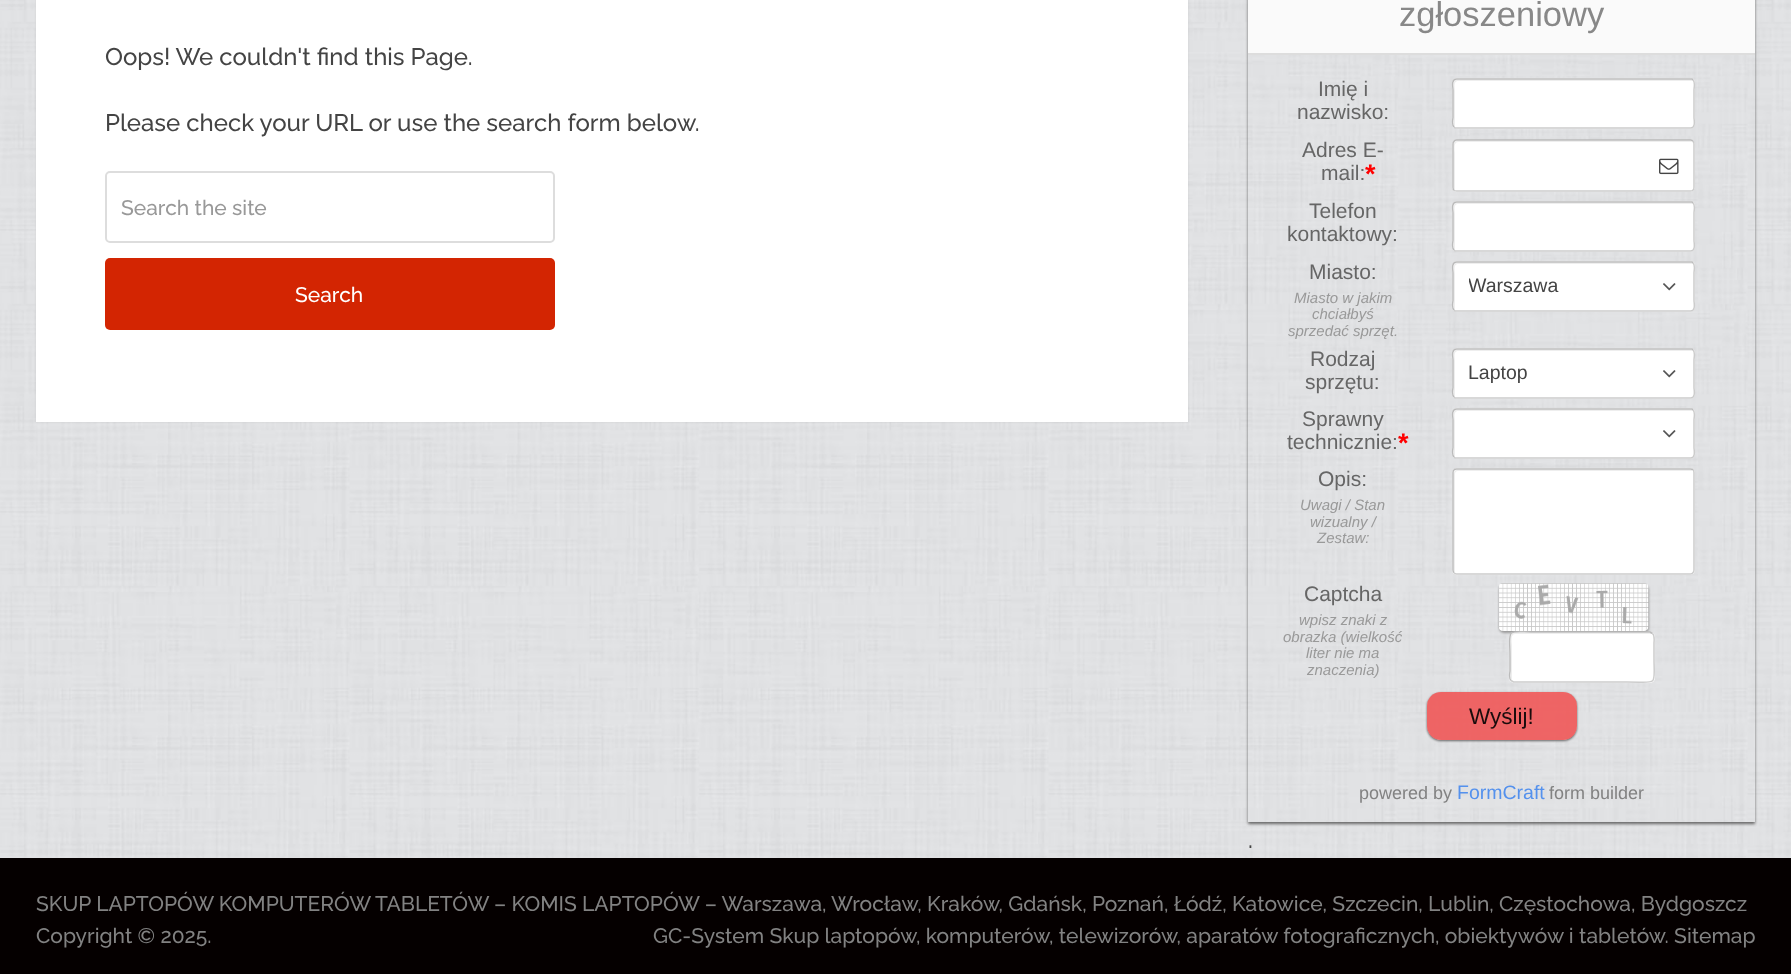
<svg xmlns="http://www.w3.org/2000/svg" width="1791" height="974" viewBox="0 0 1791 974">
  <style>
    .t1 { font: 500 24px Raleway; fill: #444; }
    .t2 { font: 500 21px Raleway; fill: #999; }
    .t3 { font: 500 21px Raleway; fill: #fff; }
    .t4 { font: 34.5px Liberation Sans; fill: #888; }
    .t5 { font: 21px Liberation Sans; fill: #666; }
    .t6 { font: bold 27px Liberation Sans; fill: #f00; }
    .t7 { font: italic 15px Liberation Sans; fill: #999; }
    .t8 { font: 19.5px Liberation Sans; fill: #444; }
    .t9 { font: 22.5px Liberation Sans; fill: #1a0c0c; }
    .t10 { font: 18px Liberation Sans; fill: #828282; }
    .t11 { font: 19.5px Liberation Sans; fill: #5491ed; }
    .t12 { font: 500 21px Raleway; fill: #828282; }
  </style>
  <defs>
    <clipPath id="clip1"><path d="M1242 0H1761V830H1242ZM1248-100H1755V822H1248Z" clip-rule="evenodd"/></clipPath>
    <clipPath id="clip2"><rect x="1469" y="273" width="210" height="27"/></clipPath>
    <clipPath id="clip3"><path d="M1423 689H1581V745H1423ZM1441 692H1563C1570.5 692 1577 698.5 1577 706V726C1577 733.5 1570.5 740 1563 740H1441C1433.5 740 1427 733.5 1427 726V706C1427 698.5 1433.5 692 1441 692Z" clip-rule="evenodd"/></clipPath>
  </defs>
  <rect width="100%" height="100%" fill="#fff"/>
  <image x="0" y="0" width="1791" height="858" href="images/1.png"/>
  <rect x="36" y="-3" width="1152" height="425" fill="#3232321a" filter="blur(1px)"/>
  <rect x="36" y="0" width="1152" height="422" fill="#fff"/>
  <text x="105" y="65" class="t1">Oops! We couldn't find this Page.</text>
  <text x="105" y="131" class="t1">Please check your URL or use the search form below.</text>
  <rect x="106" y="172" width="448" height="70" rx="4" fill="none" stroke="#ddd" stroke-width="2"/>
  <text x="121" y="215" class="t2">Search the site</text>
  <rect x="105" y="258" width="450" height="72" rx="5" fill="#d32502"/>
  <text x="295" y="302" class="t3">Search</text>
  <g clip-path="url(#clip1)">
    <rect x="1248" y="-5" width="507" height="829" fill="#666" filter="blur(1.5px)"/>
  </g>
  <rect x="1248" y="0" width="507" height="53" fill="#fafafa"/>
  <rect x="1248" y="53" width="507" height="2" fill="#ddd"/>
  <text x="1399" y="26" class="t4">zgłoszeniowy</text>
  <text x="1318" y="96" class="t5">Imię i</text>
  <text x="1297" y="119" class="t5">nazwisko:</text>
  <rect x="1452" y="78" width="243" height="51" rx="5" fill="#fff"/>
  <path d="M1458 81H1693C1693 80 1692 80 1691 80H1457C1455 80 1454 81 1454 83V125C1454 126 1454 127 1455 127V91C1455 89 1453 81 1458 81Z" fill="#eee"/>
  <path d="M1693 80C1695.5 82 1694 88 1694 89.5V117.5C1694 120 1696 128 1690.5 128H1455L1454 127" fill="none" stroke="#ccc" stroke-width="1.5"/>
  <path d="M1454 127C1451.5 125 1453 119 1453 117.5V89.5C1453 87 1451 79 1456.5 79H1692L1693 80" fill="none" stroke="#bbb" stroke-width="1.5"/>
  <text x="1302" y="157" class="t5">Adres E-</text>
  <text x="1321" y="180" class="t5">mail:</text>
  <text x="1365" y="183" class="t6">*</text>
  <rect x="1452" y="140" width="243" height="52" rx="5" fill="#fff"/>
  <path d="M1458 142H1692L1694 143C1693 142 1692 141 1691 141H1457C1455 141 1454 142 1454 144V188C1454 189 1454 190 1455 190V153C1455 152 1453 142 1458 142Z" fill="#eee"/>
  <path d="M1693 141.5C1694 142 1694 143 1694 144V187.5C1694 188.5 1694 189.5 1693 190C1692.5 191 1691.5 191 1690.5 191H1456.5C1455.5 191 1454.5 191 1454 190" fill="none" stroke="#ccc" stroke-width="1.5"/>
  <path d="M1454 190C1453 189.5 1453 188.5 1453 187.5V144C1453 143 1453 142 1454 141.5C1454.5 140.5 1455.5 140 1456.5 140H1690.5C1691.5 140 1692.5 140.5 1693 141.5" fill="none" stroke="#bbb" stroke-width="1.5"/>
  <image x="1659" y="158" width="20" height="17" href="images/2.png"/>
  <text x="1309" y="218" class="t5">Telefon</text>
  <text x="1287" y="241" class="t5">kontaktowy:</text>
  <rect x="1452" y="201" width="243" height="51" rx="5" fill="#fff"/>
  <path d="M1458 204H1693C1693 203 1692 203 1691 203H1457C1455 203 1454 204 1454 206V248C1454 249 1454 250 1455 250V214C1455 212 1453 204 1458 204Z" fill="#eee"/>
  <path d="M1693 203C1695.5 205 1694 211 1694 212.5V240.5C1694 243 1696 251 1690.5 251H1455L1454 250" fill="none" stroke="#ccc" stroke-width="1.5"/>
  <path d="M1454 250C1451.5 248 1453 242 1453 240.5V212.5C1453 210 1451 202 1456.5 202H1692L1693 203" fill="none" stroke="#bbb" stroke-width="1.5"/>
  <text x="1309" y="279" class="t5">Miasto:</text>
  <text x="1294" y="303" class="t7">Miasto w jakim</text>
  <text x="1312" y="319" class="t7">chciałbyś</text>
  <text x="1288" y="336" class="t7">sprzedać sprzęt.</text>
  <rect x="1452" y="261" width="243" height="51" rx="5" fill="#fff"/>
  <path d="M1458 264H1693C1693 263 1692 263 1691 263H1457C1455 263 1454 264 1454 266V308C1454 309 1454 310 1455 310V274C1455 272 1453 264 1458 264Z" fill="#eee"/>
  <path d="M1693 263C1695.5 265 1694 271 1694 272.5V300.5C1694 303 1696 311 1690.5 311H1455L1454 310" fill="none" stroke="#ccc" stroke-width="1.5"/>
  <path d="M1454 310C1451.5 308 1453 302 1453 300.5V272.5C1453 270 1451 262 1456.5 262H1692L1693 263" fill="none" stroke="#bbb" stroke-width="1.5"/>
  <g clip-path="url(#clip2)">
    <text x="1468" y="292" class="t8">Warszawa</text>
  </g>
  <image x="1663" y="283" width="13" height="8" href="images/3.png"/>
  <text x="1310" y="366" class="t5">Rodzaj</text>
  <text x="1305" y="389" class="t5">sprzętu:</text>
  <rect x="1452" y="348" width="243" height="51" rx="5" fill="#fff"/>
  <path d="M1458 351H1693C1693 350 1692 350 1691 350H1457C1455 350 1454 351 1454 353V395C1454 396 1454 397 1455 397V361C1455 359 1453 351 1458 351Z" fill="#eee"/>
  <path d="M1693 350C1695.5 352 1694 358 1694 359.5V387.5C1694 390 1696 398 1690.5 398H1455L1454 397" fill="none" stroke="#ccc" stroke-width="1.5"/>
  <path d="M1454 397C1451.5 395 1453 389 1453 387.5V359.5C1453 357 1451 349 1456.5 349H1692L1693 350" fill="none" stroke="#bbb" stroke-width="1.5"/>
  <text x="1468" y="379" class="t8">Laptop</text>
  <image x="1663" y="370" width="13" height="8" href="images/3.png"/>
  <text x="1302" y="426" class="t5">Sprawny</text>
  <text x="1287" y="449" class="t5">technicznie:</text>
  <text x="1398" y="452" class="t6">*</text>
  <rect x="1452" y="408" width="243" height="51" rx="5" fill="#fff"/>
  <path d="M1458 411H1693C1693 410 1692 410 1691 410H1457C1455 410 1454 411 1454 413V455C1454 456 1454 457 1455 457V421C1455 419 1453 411 1458 411Z" fill="#eee"/>
  <path d="M1693 410C1695.5 412 1694 418 1694 419.5V447.5C1694 450 1696 458 1690.5 458H1455L1454 457" fill="none" stroke="#ccc" stroke-width="1.5"/>
  <path d="M1454 457C1451.5 455 1453 449 1453 447.5V419.5C1453 417 1451 409 1456.5 409H1692L1693 410" fill="none" stroke="#bbb" stroke-width="1.5"/>
  <image x="1663" y="430" width="13" height="8" href="images/3.png"/>
  <text x="1318" y="486" class="t5">Opis:</text>
  <text x="1300" y="510" class="t7">Uwagi / Stan</text>
  <text x="1310" y="527" class="t7">wizualny /</text>
  <text x="1317" y="543" class="t7">Zestaw:</text>
  <rect x="1452" y="468" width="243" height="107" rx="5" fill="#fff"/>
  <path d="M1458 471H1693C1693 470 1692 470 1691 470H1457C1455 470 1454 471 1454 473V570C1454 571 1454 572 1455 572V474C1455 472 1456 471 1458 471Z" fill="#eee"/>
  <path d="M1693 470C1694 470.5 1694 471.5 1694 472.5V570C1694 571 1694 572 1693 572.5C1692.5 573.5 1691.5 574 1690.5 574H1456.5C1455.5 574 1454.5 573.5 1454 572.5" fill="none" stroke="#ccc" stroke-width="1.5"/>
  <path d="M1454 572.5C1453 572 1453 571 1453 570V472.5C1453 471.5 1453 470.5 1454 470C1454.5 469 1455.5 469 1456.5 469H1690.5C1691.5 469 1692.5 469 1693 470" fill="none" stroke="#bbb" stroke-width="1.5"/>
  <text x="1304" y="601" class="t5">Captcha</text>
  <text x="1299" y="625" class="t7">wpisz znaki z</text>
  <text x="1283" y="642" class="t7">obrazka (wielkość</text>
  <text x="1306" y="658" class="t7">liter nie ma</text>
  <text x="1307" y="675" class="t7">znaczenia)</text>
  <rect x="1499" y="585" width="150" height="48" rx="5" fill="#999" filter="blur(1px)"/>
  <image x="1498" y="583" width="151" height="48" href="images/4.png"/>
  <rect x="1509" y="632" width="146" height="51" rx="5" fill="#fff"/>
  <path d="M1515 634H1652C1652 633 1651 633 1650 633H1514C1512 633 1511 634 1511 636V678C1511 679 1511 680 1512 680V645C1512 644 1510 634 1515 634Z" fill="#eee"/>
  <path d="M1652.5 633.5C1655 635.5 1654 641.5 1654 643V657C1654 687.5 1659 682 1627 682H1513.5L1511 680.5" fill="none" stroke="#ccc" stroke-width="1.5"/>
  <path d="M1511 680.5C1508.5 678.5 1510 672.5 1510 671V657C1510 626.5 1504.5 632 1536 632H1650L1652.5 633.5" fill="none" stroke="#bbb" stroke-width="1.5"/>
  <g clip-path="url(#clip3)">
    <rect x="1427" y="693" width="150" height="48" rx="14" fill="#555555e6" filter="blur(1px)"/>
  </g>
  <rect x="1427" y="692" width="150" height="48" rx="14" fill="#f05656e6"/>
  <text x="1469" y="724" class="t9">Wyślij!</text>
  <text x="1359" y="799" class="t10">powered by</text>
  <text x="1457" y="799" class="t11">FormCraft</text>
  <text x="1549" y="799" class="t10">form builder</text>
  <text x="1248" y="848" class="t1">.</text>
  <rect x="0" y="858" width="1791" height="116" fill="#050000"/>
  <text x="36" y="911" class="t12">SKUP LAPTOPÓW KOMPUTERÓW TABLETÓW – KOMIS LAPTOPÓW – Warszawa, Wrocław, Kraków, Gdańsk, Poznań, Łódź, Katowice, Szczecin, Lublin, Częstochowa, Bydgoszcz</text>
  <text x="36" y="943" class="t12">Copyright © 2025.</text>
  <text x="653" y="943" class="t12">GC-System Skup laptopów, komputerów, telewizorów, aparatów fotograficznych, obiektywów i tabletów. Sitemap</text>
</svg>
